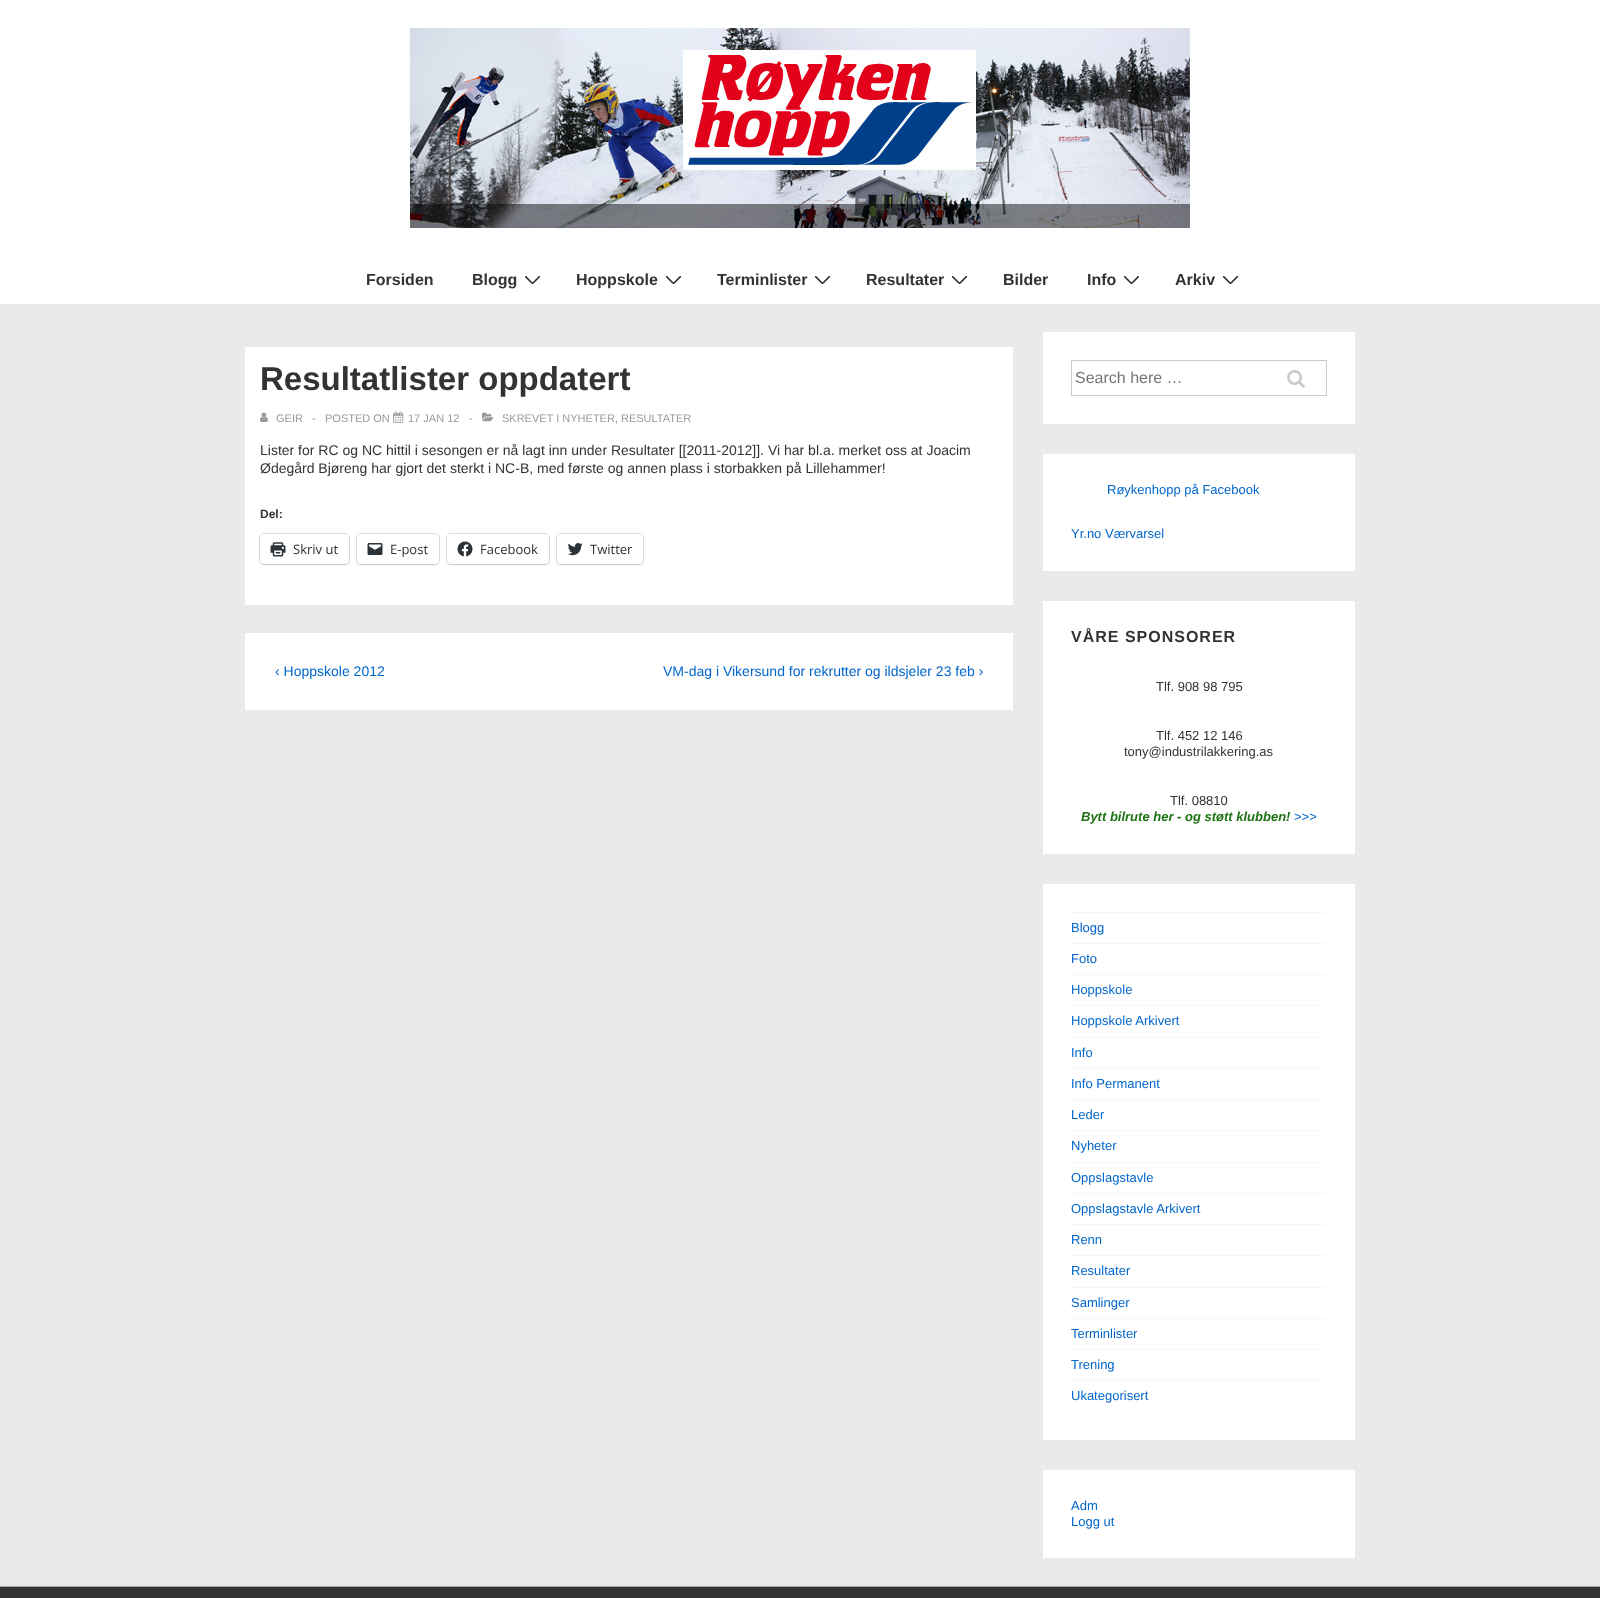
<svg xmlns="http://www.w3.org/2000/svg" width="1600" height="1598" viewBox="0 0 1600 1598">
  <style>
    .t1 { font: bold 16px Liberation Sans; fill: #333; }
    .t2 { font: bold 33px Liberation Sans; fill: #333; }
    .t3 { font: 11px Liberation Sans; fill: #999; }
    .t4 { font: 14px Liberation Sans; fill: #333; }
    .t5 { font: bold 12px Liberation Sans; fill: #333; }
    .t6 { font: 13px Open Sans; fill: #2c3338; }
    .t7 { font: 14px Liberation Sans; fill: #06c; }
    .t8 { font: 16px Liberation Sans; fill: #757575; }
    .t9 { font: 13px Liberation Sans; fill: #06c; }
    .t10 { font: bold 16px Liberation Sans; letter-spacing: 1px; fill: #333; }
    .t11 { font: 13px Liberation Sans; fill: #333; }
    .t12 { font: italic bold 13px Liberation Sans; fill: #1c7212; }
  </style>
  <defs>
    <clipPath id="clip1"><rect x="525" y="276" width="15" height="8"/></clipPath>
    <clipPath id="clip2"><rect x="666" y="276" width="15" height="8"/></clipPath>
    <clipPath id="clip3"><rect x="815" y="276" width="15" height="8"/></clipPath>
    <clipPath id="clip4"><rect x="952" y="276" width="15" height="8"/></clipPath>
    <clipPath id="clip5"><rect x="1124" y="276" width="15" height="8"/></clipPath>
    <clipPath id="clip6"><rect x="1223" y="276" width="15" height="8"/></clipPath>
  </defs>
  <rect width="100%" height="100%" fill="#eaeaea"/>
  <rect x="0" y="0" width="1600" height="304" fill="#fff"/>
  <image x="410" y="28" width="780" height="200" href="images/1.png"/>
  <text x="366" y="285" class="t1">Forsiden</text>
  <text x="472" y="285" class="t1">Blogg</text>
  <g clip-path="url(#clip1)">
    <path d="M525.5 276.5L532.5 283.5L539.5 276.5" fill="none" stroke="#333" stroke-width="1.6" stroke-linecap="round"/>
  </g>
  <text x="576" y="285" class="t1">Hoppskole</text>
  <g clip-path="url(#clip2)">
    <path d="M666.5 276.5L673.5 283.5L680.5 276.5" fill="none" stroke="#333" stroke-width="1.6" stroke-linecap="round"/>
  </g>
  <text x="717" y="285" class="t1">Terminlister</text>
  <g clip-path="url(#clip3)">
    <path d="M815.5 276.5L822.5 283.5L829.5 276.5" fill="none" stroke="#333" stroke-width="1.6" stroke-linecap="round"/>
  </g>
  <text x="866" y="285" class="t1">Resultater</text>
  <g clip-path="url(#clip4)">
    <path d="M952.5 276.5L959.5 283.5L966.5 276.5" fill="none" stroke="#333" stroke-width="1.6" stroke-linecap="round"/>
  </g>
  <text x="1003" y="285" class="t1">Bilder</text>
  <text x="1087" y="285" class="t1">Info</text>
  <g clip-path="url(#clip5)">
    <path d="M1124.5 276.5L1131.5 283.5L1138.5 276.5" fill="none" stroke="#333" stroke-width="1.6" stroke-linecap="round"/>
  </g>
  <text x="1175" y="285" class="t1">Arkiv</text>
  <g clip-path="url(#clip6)">
    <path d="M1223.5 276.5L1230.5 283.5L1237.5 276.5" fill="none" stroke="#333" stroke-width="1.6" stroke-linecap="round"/>
  </g>
  <rect x="245" y="347" width="768" height="258" fill="#fff"/>
  <text x="260" y="390" class="t2">Resultatlister oppdatert</text>
  <image x="260" y="412" width="8" height="10" href="images/2.png"/>
  <text x="276" y="422" class="t3">GEIR</text>
  <text x="312" y="422" class="t3">-</text>
  <text x="325" y="422" class="t3">POSTED ON</text>
  <image x="393" y="411" width="11" height="12" href="images/3.png"/>
  <text x="408" y="422" class="t3">17 JAN 12</text>
  <text x="469" y="422" class="t3">-</text>
  <image x="482" y="412" width="12" height="10" href="images/4.png"/>
  <text x="502" y="422" class="t3">SKREVET I NYHETER, RESULTATER</text>
  <text x="260" y="455" class="t4">Lister for RC og NC hittil i sesongen er nå lagt inn under Resultater [[2011-2012]]. Vi har bl.a. merket oss at Joacim</text>
  <text x="260" y="473" class="t4">Ødegård Bjøreng har gjort det sterkt i NC-B, med første og annen plass i storbakken på Lillehammer!</text>
  <text x="260" y="518" class="t5">Del:</text>
  <rect x="259.5" y="533.5" width="90" height="31" rx="4.5" fill="none" stroke="#e0e0e0"/>
  <rect x="260" y="535" width="89" height="30" rx="4" fill="#0000001f" filter="blur(1px)"/>
  <rect x="260" y="534" width="89" height="30" rx="4" fill="#fff"/>
  <image x="270" y="542" width="16" height="15" href="images/5.png"/>
  <text x="293" y="554" class="t6">Skriv ut</text>
  <rect x="356.5" y="533.5" width="83" height="31" rx="4.5" fill="none" stroke="#e0e0e0"/>
  <rect x="357" y="535" width="82" height="30" rx="4" fill="#0000001f" filter="blur(1px)"/>
  <rect x="357" y="534" width="82" height="30" rx="4" fill="#fff"/>
  <image x="367" y="543" width="16" height="12" href="images/6.png"/>
  <text x="390" y="554" class="t6">E-post</text>
  <rect x="446.5" y="533.5" width="103" height="31" rx="4.5" fill="none" stroke="#e0e0e0"/>
  <rect x="447" y="535" width="102" height="30" rx="4" fill="#0000001f" filter="blur(1px)"/>
  <rect x="447" y="534" width="102" height="30" rx="4" fill="#fff"/>
  <image x="457" y="541" width="16" height="16" href="images/7.png"/>
  <text x="480" y="554" class="t6">Facebook</text>
  <rect x="556.5" y="533.5" width="87" height="31" rx="4.5" fill="none" stroke="#e0e0e0"/>
  <rect x="557" y="535" width="86" height="30" rx="4" fill="#0000001f" filter="blur(1px)"/>
  <rect x="557" y="534" width="86" height="30" rx="4" fill="#fff"/>
  <image x="567" y="543" width="16" height="13" href="images/8.png"/>
  <text x="590" y="554" class="t6">Twitter</text>
  <rect x="245" y="633" width="768" height="77" fill="#fff"/>
  <text x="275" y="676" class="t7">‹ Hoppskole 2012</text>
  <text x="663" y="676" class="t7">VM-dag i Vikersund for rekrutter og ildsjeler 23 feb ›</text>
  <rect x="1043" y="332" width="312" height="92" fill="#fff"/>
  <rect x="1071.5" y="360.5" width="255" height="35" fill="none" stroke="#ccc"/>
  <text x="1075" y="383" class="t8">Search here …</text>
  <image x="1287" y="370" width="18" height="18" href="images/9.png"/>
  <rect x="1043" y="454" width="312" height="117" fill="#fff"/>
  <text x="1107" y="494" class="t9">Røykenhopp på Facebook</text>
  <text x="1071" y="538" class="t9">Yr.no Værvarsel</text>
  <rect x="1043" y="601" width="312" height="253" fill="#fff"/>
  <text x="1071" y="642" class="t10">VÅRE SPONSORER</text>
  <text x="1156" y="691" class="t11">Tlf. 908 98 795</text>
  <text x="1156" y="740" class="t11">Tlf. 452 12 146</text>
  <text x="1124" y="756" class="t11">tony@industrilakkering.as</text>
  <text x="1170" y="805" class="t11">Tlf. 08810</text>
  <text x="1081" y="821" class="t12">Bytt bilrute her - og støtt klubben!</text>
  <text x="1294" y="821" class="t9">&gt;&gt;&gt;</text>
  <rect x="1043" y="884" width="312" height="556" fill="#fff"/>
  <path d="M1071 912.5H1327" fill="none" stroke="#eee" stroke-dasharray="1 1"/>
  <text x="1071" y="932" class="t9">Blogg</text>
  <path d="M1071 943.5H1327" fill="none" stroke="#eee" stroke-dasharray="1 1"/>
  <text x="1071" y="963" class="t9">Foto</text>
  <path d="M1071 974.5H1327" fill="none" stroke="#eee" stroke-dasharray="1 1"/>
  <text x="1071" y="994" class="t9">Hoppskole</text>
  <path d="M1071 1005.5H1327" fill="none" stroke="#eee" stroke-dasharray="1 1"/>
  <text x="1071" y="1025" class="t9">Hoppskole Arkivert</text>
  <path d="M1071 1037.5H1327" fill="none" stroke="#eee" stroke-dasharray="1 1"/>
  <text x="1071" y="1057" class="t9">Info</text>
  <path d="M1071 1068.5H1327" fill="none" stroke="#eee" stroke-dasharray="1 1"/>
  <text x="1071" y="1088" class="t9">Info Permanent</text>
  <path d="M1071 1099.5H1327" fill="none" stroke="#eee" stroke-dasharray="1 1"/>
  <text x="1071" y="1119" class="t9">Leder</text>
  <path d="M1071 1130.5H1327" fill="none" stroke="#eee" stroke-dasharray="1 1"/>
  <text x="1071" y="1150" class="t9">Nyheter</text>
  <path d="M1071 1162.5H1327" fill="none" stroke="#eee" stroke-dasharray="1 1"/>
  <text x="1071" y="1182" class="t9">Oppslagstavle</text>
  <path d="M1071 1193.5H1327" fill="none" stroke="#eee" stroke-dasharray="1 1"/>
  <text x="1071" y="1213" class="t9">Oppslagstavle Arkivert</text>
  <path d="M1071 1224.5H1327" fill="none" stroke="#eee" stroke-dasharray="1 1"/>
  <text x="1071" y="1244" class="t9">Renn</text>
  <path d="M1071 1255.5H1327" fill="none" stroke="#eee" stroke-dasharray="1 1"/>
  <text x="1071" y="1275" class="t9">Resultater</text>
  <path d="M1071 1287.5H1327" fill="none" stroke="#eee" stroke-dasharray="1 1"/>
  <text x="1071" y="1307" class="t9">Samlinger</text>
  <path d="M1071 1318.5H1327" fill="none" stroke="#eee" stroke-dasharray="1 1"/>
  <text x="1071" y="1338" class="t9">Terminlister</text>
  <path d="M1071 1349.5H1327" fill="none" stroke="#eee" stroke-dasharray="1 1"/>
  <text x="1071" y="1369" class="t9">Trening</text>
  <path d="M1071 1380.5H1327" fill="none" stroke="#eee" stroke-dasharray="1 1"/>
  <text x="1071" y="1400" class="t9">Ukategorisert</text>
  <rect x="1043" y="1470" width="312" height="88" fill="#fff"/>
  <text x="1071" y="1510" class="t9">Adm</text>
  <text x="1071" y="1526" class="t9">Logg ut</text>
  <rect x="0" y="1587" width="1600" height="11" fill="#333"/>
  <rect x="0" y="1586" width="1600" height="1" fill="#aaa"/>
</svg>
